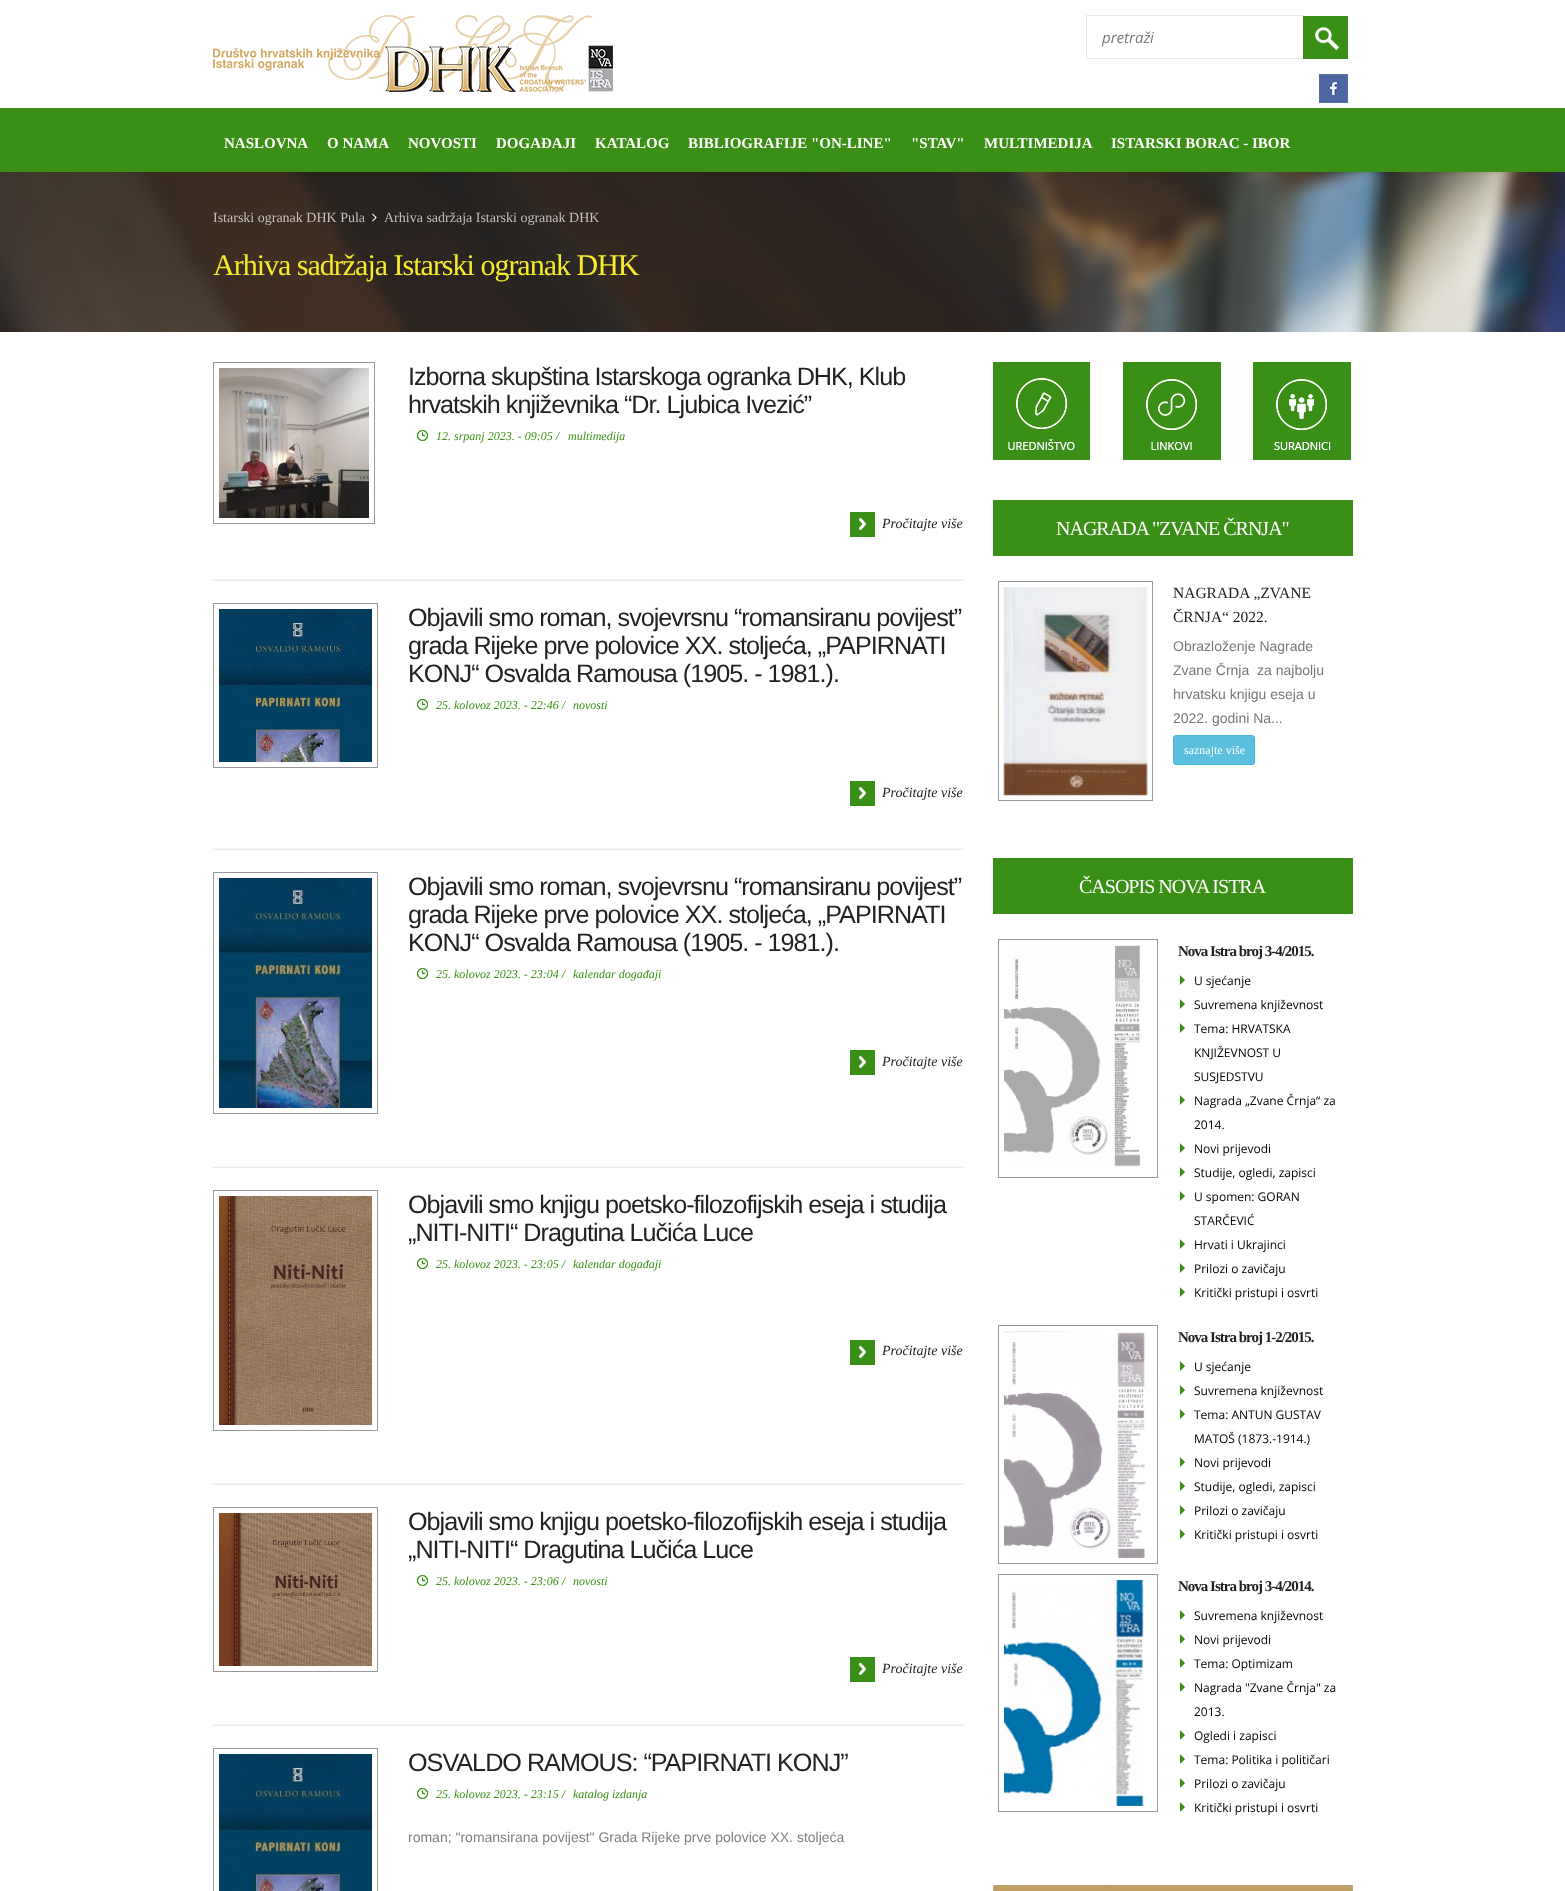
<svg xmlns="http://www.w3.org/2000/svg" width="1565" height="1891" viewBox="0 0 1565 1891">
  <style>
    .t1 { font: italic 15px Open Sans; fill: #777; }
    .t2 { font: bold 15px Liberation Serif; fill: #fff; }
    .t3 { font: 14px Liberation Serif; fill: #c4bfbd; }
    .t4 { font: 30px Liberation Serif; letter-spacing: -1px; fill: #f4eb2c; }
    .t5 { font: 25.2px Liberation Sans; letter-spacing: -1px; fill: #222; }
    .t6 { font: italic 12px Liberation Serif; fill: #3a8f16; }
    .t7 { font: italic 14px Liberation Serif; fill: #222; }
    .t8 { font: 14px Liberation Sans; fill: #7f7f7f; }
    .t9 { font: 20px Liberation Serif; letter-spacing: -1px; fill: #fff; }
    .t10 { font: 15.5px Liberation Serif; fill: #222; }
    .t11 { font: 14px Liberation Sans; fill: #777; }
    .t12 { font: 12px Liberation Serif; fill: #fff; }
    .t13 { font: bold 15px Liberation Serif; letter-spacing: -1px; fill: #222; }
    .t14 { font: 12px Open Sans; fill: #000; }
  </style>
  <rect width="100%" height="100%" fill="#fff"/>
  <image x="0" y="172" width="1565" height="160" href="images/4.png"/>
  <rect x="0" y="0" width="1565" height="172" fill="#0000001a" filter="blur(1.5px)"/>
  <rect x="0" y="0" width="1565" height="108" fill="#fff"/>
  <image x="213" y="15" width="400" height="77" href="images/1.png"/>
  <rect x="1086.5" y="15.5" width="218" height="43" fill="none" stroke="#e9e9e9"/>
  <text x="1102" y="43" class="t1">pretraži</text>
  <image x="1303" y="16" width="45" height="43" href="images/2.png"/>
  <image x="1319" y="74" width="29" height="29" href="images/3.png"/>
  <rect x="0" y="108" width="1565" height="64" fill="#3a8f16"/>
  <text x="224" y="148" class="t2">NASLOVNA</text>
  <text x="327" y="148" class="t2">O NAMA</text>
  <text x="408" y="148" class="t2">NOVOSTI</text>
  <text x="496" y="148" class="t2">DOGAĐAJI</text>
  <text x="595" y="148" class="t2">KATALOG</text>
  <text x="688" y="148" class="t2">BIBLIOGRAFIJE "ON-LINE"</text>
  <text x="911" y="148" class="t2">"STAV"</text>
  <text x="984" y="148" class="t2">MULTIMEDIJA</text>
  <text x="1111" y="148" class="t2">ISTARSKI BORAC - IBOR</text>
  <text x="213" y="222" class="t3">Istarski ogranak DHK Pula</text>
  <image x="372" y="213" width="5" height="9" href="images/5.png"/>
  <text x="384" y="222" class="t3">Arhiva sadržaja Istarski ogranak DHK</text>
  <text x="213" y="275" class="t4">Arhiva sadržaja Istarski ogranak DHK</text>
  <rect x="213.5" y="362.5" width="161" height="161" fill="none" stroke="#989898"/>
  <image x="219" y="368" width="150" height="150" href="images/6.png"/>
  <text x="408" y="385" class="t5">Izborna skupština Istarskoga ogranka DHK, Klub</text>
  <text x="408" y="413" class="t5">hrvatskih književnika “Dr. Ljubica Ivezić”</text>
  <image x="417" y="430" width="11" height="11" href="images/7.png"/>
  <text x="436" y="440" class="t6">12. srpanj 2023. - 09:05 /</text>
  <text x="568" y="440" class="t6">multimedija</text>
  <image x="850" y="512" width="25" height="25" href="images/8.png"/>
  <text x="882" y="528" class="t7">Pročitajte više</text>
  <rect x="213" y="579" width="750" height="2" fill="#ebebeb"/>
  <path d="M213 579.5H963" fill="none" stroke="#fff" stroke-dasharray="1 1"/>
  <rect x="213.5" y="603.5" width="164" height="164" fill="none" stroke="#989898"/>
  <image x="219" y="609" width="153" height="153" href="images/9.png"/>
  <text x="408" y="626" class="t5">Objavili smo roman, svojevrsnu “romansiranu povijest”</text>
  <text x="408" y="654" class="t5">grada Rijeke prve polovice XX. stoljeća, „PAPIRNATI</text>
  <text x="408" y="682" class="t5">KONJ“ Osvalda Ramousa (1905. - 1981.).</text>
  <image x="417" y="699" width="11" height="11" href="images/7.png"/>
  <text x="436" y="709" class="t6">25. kolovoz 2023. - 22:46 /</text>
  <text x="573" y="709" class="t6">novosti</text>
  <image x="850" y="781" width="25" height="25" href="images/8.png"/>
  <text x="882" y="797" class="t7">Pročitajte više</text>
  <rect x="213" y="848" width="750" height="2" fill="#ebebeb"/>
  <path d="M213 848.5H963" fill="none" stroke="#fff" stroke-dasharray="1 1"/>
  <rect x="213.5" y="872.5" width="164" height="241" fill="none" stroke="#989898"/>
  <image x="219" y="878" width="153" height="230" href="images/10.png"/>
  <text x="408" y="895" class="t5">Objavili smo roman, svojevrsnu “romansiranu povijest”</text>
  <text x="408" y="923" class="t5">grada Rijeke prve polovice XX. stoljeća, „PAPIRNATI</text>
  <text x="408" y="951" class="t5">KONJ“ Osvalda Ramousa (1905. - 1981.).</text>
  <image x="417" y="968" width="11" height="11" href="images/7.png"/>
  <text x="436" y="978" class="t6">25. kolovoz 2023. - 23:04 /</text>
  <text x="573" y="978" class="t6">kalendar događaji</text>
  <image x="850" y="1050" width="25" height="25" href="images/8.png"/>
  <text x="882" y="1066" class="t7">Pročitajte više</text>
  <rect x="213" y="1166" width="750" height="2" fill="#ebebeb"/>
  <path d="M213 1166.5H963" fill="none" stroke="#fff" stroke-dasharray="1 1"/>
  <rect x="213.5" y="1190.5" width="164" height="240" fill="none" stroke="#989898"/>
  <image x="219" y="1196" width="153" height="229" href="images/11.png"/>
  <text x="408" y="1213" class="t5">Objavili smo knjigu poetsko-filozofijskih eseja i studija</text>
  <text x="408" y="1241" class="t5">„NITI-NITI“ Dragutina Lučića Luce</text>
  <image x="417" y="1258" width="11" height="11" href="images/7.png"/>
  <text x="436" y="1268" class="t6">25. kolovoz 2023. - 23:05 /</text>
  <text x="573" y="1268" class="t6">kalendar događaji</text>
  <image x="850" y="1340" width="25" height="25" href="images/8.png"/>
  <text x="882" y="1355" class="t7">Pročitajte više</text>
  <rect x="213" y="1483" width="750" height="2" fill="#ebebeb"/>
  <path d="M213 1483.5H963" fill="none" stroke="#fff" stroke-dasharray="1 1"/>
  <rect x="213.5" y="1507.5" width="164" height="164" fill="none" stroke="#989898"/>
  <image x="219" y="1513" width="153" height="153" href="images/12.png"/>
  <text x="408" y="1530" class="t5">Objavili smo knjigu poetsko-filozofijskih eseja i studija</text>
  <text x="408" y="1558" class="t5">„NITI-NITI“ Dragutina Lučića Luce</text>
  <image x="417" y="1575" width="11" height="11" href="images/7.png"/>
  <text x="436" y="1585" class="t6">25. kolovoz 2023. - 23:06 /</text>
  <text x="573" y="1585" class="t6">novosti</text>
  <image x="850" y="1657" width="25" height="25" href="images/8.png"/>
  <text x="882" y="1673" class="t7">Pročitajte više</text>
  <rect x="213" y="1724" width="750" height="2" fill="#ebebeb"/>
  <path d="M213 1724.5H963" fill="none" stroke="#fff" stroke-dasharray="1 1"/>
  <rect x="213.5" y="1748.5" width="164" height="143" fill="none" stroke="#989898"/>
  <image x="219" y="1754" width="153" height="137" href="images/13.png"/>
  <text x="408" y="1771" class="t5">OSVALDO RAMOUS: “PAPIRNATI KONJ”</text>
  <image x="417" y="1788" width="11" height="11" href="images/7.png"/>
  <text x="436" y="1798" class="t6">25. kolovoz 2023. - 23:15 /</text>
  <text x="573" y="1798" class="t6">katalog izdanja</text>
  <text x="408" y="1842" class="t8">roman; "romansirana povijest" Grada Rijeke prve polovice XX. stoljeća</text>
  <image x="993" y="362" width="97" height="98" href="images/14.png"/>
  <image x="1123" y="362" width="98" height="98" href="images/15.png"/>
  <image x="1253" y="362" width="98" height="98" href="images/16.png"/>
  <rect x="993" y="500" width="360" height="56" fill="#3a8f16"/>
  <text x="1056" y="535" class="t9">NAGRADA "ZVANE ČRNJA"</text>
  <rect x="998.5" y="581.5" width="154" height="219" fill="none" stroke="#989898"/>
  <image x="1003" y="587" width="145" height="209" href="images/17.png"/>
  <text x="1173" y="598" class="t10">NAGRADA „ZVANE</text>
  <text x="1173" y="622" class="t10">ČRNJA“ 2022.</text>
  <text x="1173" y="651" class="t11">Obrazloženje Nagrade</text>
  <text x="1173" y="675" class="t11" xml:space="preserve">Zvane Črnja  za najbolju</text>
  <text x="1173" y="699" class="t11">hrvatsku knjigu eseja u</text>
  <text x="1173" y="723" class="t11">2022. godini Na...</text>
  <rect x="1173.5" y="735.5" width="81" height="29" rx="2.5" fill="#5bc0de" stroke="#46b8da"/>
  <text x="1184" y="754" class="t12">saznajte više</text>
  <rect x="993" y="858" width="360" height="56" fill="#3a8f16"/>
  <text x="1079" y="893" class="t9">ČASOPIS NOVA ISTRA</text>
  <rect x="998.5" y="939.5" width="159" height="238" fill="none" stroke="#989898"/>
  <image x="1004" y="945" width="136" height="222" href="images/18.png"/>
  <text x="1178" y="956" class="t13">Nova Istra broj 3-4/2015.</text>
  <image x="1180" y="975" width="5" height="10" href="images/19.png"/>
  <text x="1194" y="985" class="t14">U sjećanje</text>
  <image x="1180" y="999" width="5" height="10" href="images/19.png"/>
  <text x="1194" y="1009" class="t14">Suvremena književnost</text>
  <image x="1180" y="1023" width="5" height="10" href="images/19.png"/>
  <text x="1194" y="1033" class="t14">Tema: HRVATSKA</text>
  <text x="1194" y="1057" class="t14">KNJIŽEVNOST U</text>
  <text x="1194" y="1081" class="t14">SUSJEDSTVU</text>
  <image x="1180" y="1095" width="5" height="10" href="images/19.png"/>
  <text x="1194" y="1105" class="t14">Nagrada „Zvane Črnja“ za</text>
  <text x="1194" y="1129" class="t14">2014.</text>
  <image x="1180" y="1143" width="5" height="10" href="images/19.png"/>
  <text x="1194" y="1153" class="t14">Novi prijevodi</text>
  <image x="1180" y="1167" width="5" height="10" href="images/19.png"/>
  <text x="1194" y="1177" class="t14">Studije, ogledi, zapisci</text>
  <image x="1180" y="1191" width="5" height="10" href="images/19.png"/>
  <text x="1194" y="1201" class="t14">U spomen: GORAN</text>
  <text x="1194" y="1225" class="t14">STARČEVIĆ</text>
  <image x="1180" y="1239" width="5" height="10" href="images/19.png"/>
  <text x="1194" y="1249" class="t14">Hrvati i Ukrajinci</text>
  <image x="1180" y="1263" width="5" height="10" href="images/19.png"/>
  <text x="1194" y="1273" class="t14">Prilozi o zavičaju</text>
  <image x="1180" y="1287" width="5" height="10" href="images/19.png"/>
  <text x="1194" y="1297" class="t14">Kritički pristupi i osvrti</text>
  <rect x="998.5" y="1325.5" width="159" height="238" fill="none" stroke="#989898"/>
  <image x="1004" y="1331" width="142" height="227" href="images/20.png"/>
  <text x="1178" y="1342" class="t13">Nova Istra broj 1-2/2015.</text>
  <image x="1180" y="1361" width="5" height="10" href="images/19.png"/>
  <text x="1194" y="1371" class="t14">U sjećanje</text>
  <image x="1180" y="1385" width="5" height="10" href="images/19.png"/>
  <text x="1194" y="1395" class="t14">Suvremena književnost</text>
  <image x="1180" y="1409" width="5" height="10" href="images/19.png"/>
  <text x="1194" y="1419" class="t14">Tema: ANTUN GUSTAV</text>
  <text x="1194" y="1443" class="t14">MATOŠ (1873.-1914.)</text>
  <image x="1180" y="1457" width="5" height="10" href="images/19.png"/>
  <text x="1194" y="1467" class="t14">Novi prijevodi</text>
  <image x="1180" y="1481" width="5" height="10" href="images/19.png"/>
  <text x="1194" y="1491" class="t14">Studije, ogledi, zapisci</text>
  <image x="1180" y="1505" width="5" height="10" href="images/19.png"/>
  <text x="1194" y="1515" class="t14">Prilozi o zavičaju</text>
  <image x="1180" y="1529" width="5" height="10" href="images/19.png"/>
  <text x="1194" y="1539" class="t14">Kritički pristupi i osvrti</text>
  <rect x="998.5" y="1574.5" width="159" height="237" fill="none" stroke="#989898"/>
  <image x="1004" y="1580" width="140" height="226" href="images/21.png"/>
  <text x="1178" y="1591" class="t13">Nova Istra broj 3-4/2014.</text>
  <image x="1180" y="1610" width="5" height="10" href="images/19.png"/>
  <text x="1194" y="1620" class="t14">Suvremena književnost</text>
  <image x="1180" y="1634" width="5" height="10" href="images/19.png"/>
  <text x="1194" y="1644" class="t14">Novi prijevodi</text>
  <image x="1180" y="1658" width="5" height="10" href="images/19.png"/>
  <text x="1194" y="1668" class="t14">Tema: Optimizam</text>
  <image x="1180" y="1682" width="5" height="10" href="images/19.png"/>
  <text x="1194" y="1692" class="t14">Nagrada "Zvane Črnja" za</text>
  <text x="1194" y="1716" class="t14">2013.</text>
  <image x="1180" y="1730" width="5" height="10" href="images/19.png"/>
  <text x="1194" y="1740" class="t14">Ogledi i zapisci</text>
  <image x="1180" y="1754" width="5" height="10" href="images/19.png"/>
  <text x="1194" y="1764" class="t14">Tema: Politika i političari</text>
  <image x="1180" y="1778" width="5" height="10" href="images/19.png"/>
  <text x="1194" y="1788" class="t14">Prilozi o zavičaju</text>
  <image x="1180" y="1802" width="5" height="10" href="images/19.png"/>
  <text x="1194" y="1812" class="t14">Kritički pristupi i osvrti</text>
  <image x="993" y="1885" width="360" height="6" href="images/22.png"/>
</svg>
